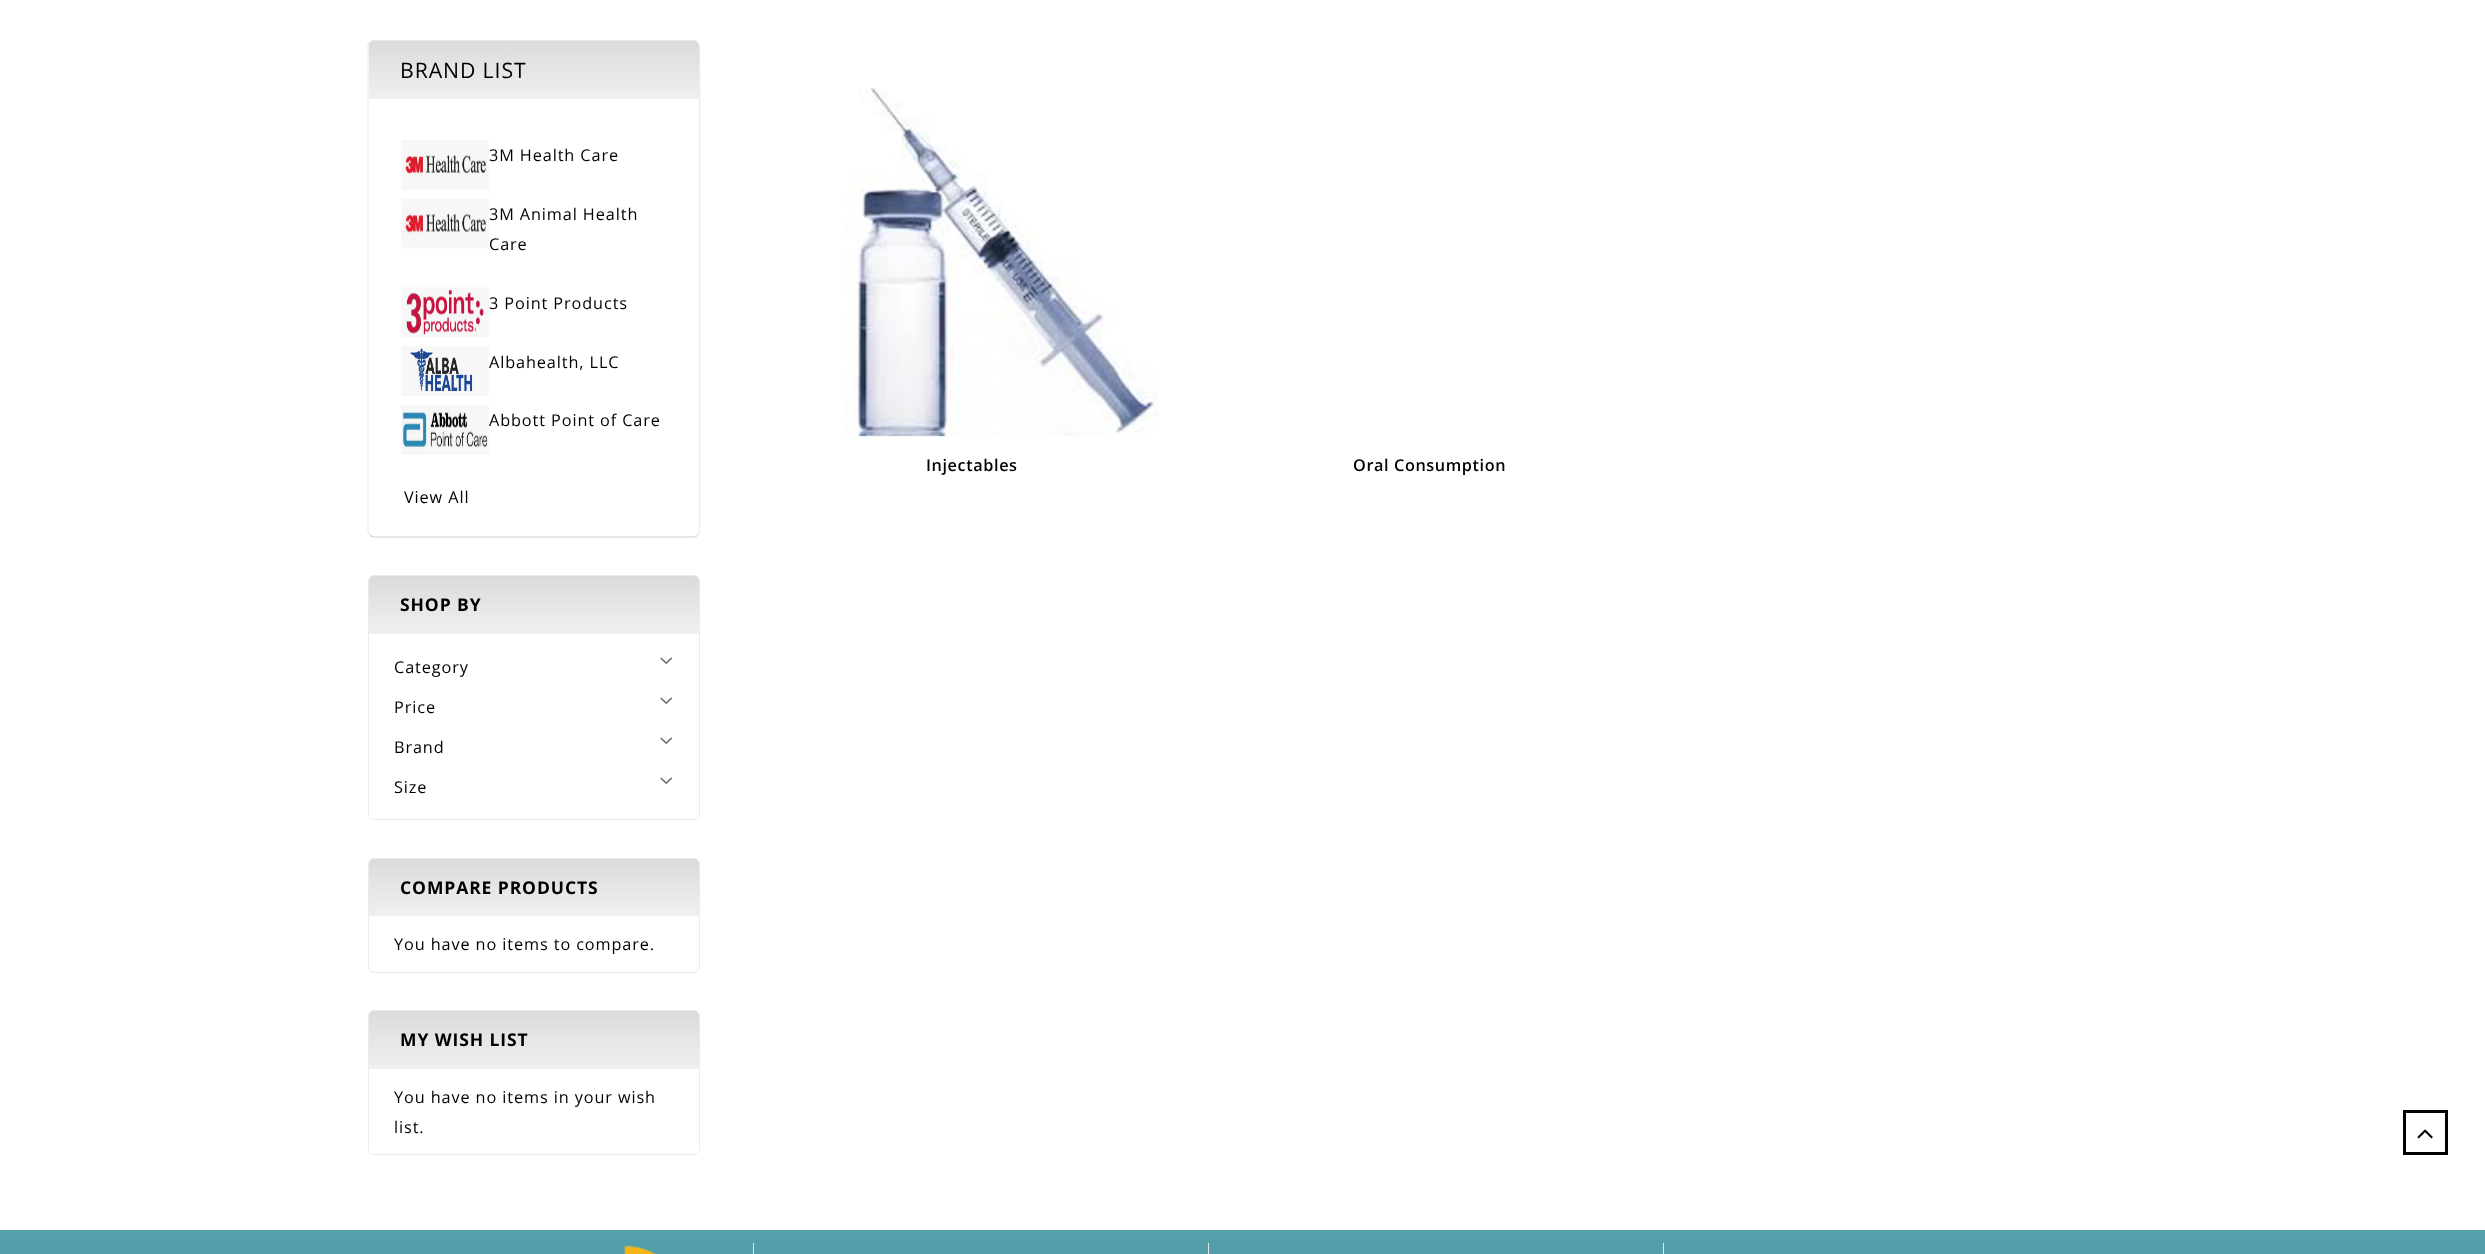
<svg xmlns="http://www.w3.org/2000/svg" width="2485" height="1254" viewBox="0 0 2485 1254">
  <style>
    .t1 { font: 21.25px Open Sans; letter-spacing: 0.9px; fill: #000; }
    .t2 { font: 16.25px Open Sans; letter-spacing: 0.9px; fill: #000; }
    .t3 { font: bold 17.5px Open Sans; letter-spacing: 0.9px; fill: #000; }
    .t4 { font: 600 16.25px Open Sans; letter-spacing: 0.6px; fill: #000; }
  </style>
  <defs>
    <linearGradient id="g1" gradientUnits="userSpaceOnUse" x1="534" y1="41" x2="534" y2="99"><stop offset="0" stop-color="#dbdbdb"/><stop offset="1" stop-color="#f0f0f0"/></linearGradient>
    <linearGradient id="g2" gradientUnits="userSpaceOnUse" x1="534" y1="576" x2="534" y2="634"><stop offset="0" stop-color="#dbdbdb"/><stop offset="1" stop-color="#f0f0f0"/></linearGradient>
    <linearGradient id="g3" gradientUnits="userSpaceOnUse" x1="534" y1="859" x2="534" y2="916"><stop offset="0" stop-color="#dbdbdb"/><stop offset="1" stop-color="#f0f0f0"/></linearGradient>
    <linearGradient id="g4" gradientUnits="userSpaceOnUse" x1="534" y1="1011" x2="534" y2="1069"><stop offset="0" stop-color="#dbdbdb"/><stop offset="1" stop-color="#f0f0f0"/></linearGradient>
    <linearGradient id="g5" gradientUnits="userSpaceOnUse" x1="1243" y1="1230" x2="1243" y2="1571"><stop offset="0" stop-color="#54a0ad"/><stop offset="1" stop-color="#3f7882"/></linearGradient>
  </defs>
  <rect width="100%" height="100%" fill="#fff"/>
  <path d="M697.5 535C696.5 536.5 695 537 694 537H374C372.5 537 371 536.5 370 535" fill="none" stroke="#ccc" stroke-width="1.2"/>
  <path d="M370 535C368.5 534 368 532.5 368 531V46C368 45 368.5 43.5 370 42.5C371 41 372.5 40.5 374 40.5H694C695 40.5 696.5 41 697.5 42.5C699 43.5 699.5 45 699.5 46V531C699.5 532.5 699 534 697.5 535" fill="none" stroke="#ebebeb" stroke-width="1.2"/>
  <path d="M374 41H694C697 41 699 43 699 46V99H369V46C369 43 371 41 374 41Z" fill="url(#g1)"/>
  <text x="400" y="78" class="t1">BRAND LIST</text>
  <image x="401" y="140" width="88" height="50" href="images/1.png"/>
  <text x="489" y="161" class="t2">3M Health Care</text>
  <image x="401" y="198" width="88" height="51" href="images/2.png"/>
  <text x="489" y="220" class="t2">3M Animal Health</text>
  <text x="489" y="250" class="t2">Care</text>
  <image x="401" y="287" width="88" height="50" href="images/3.png"/>
  <text x="489" y="309" class="t2">3 Point Products</text>
  <image x="401" y="346" width="88" height="50" href="images/4.png"/>
  <text x="489" y="368" class="t2">Albahealth, LLC</text>
  <image x="401" y="405" width="88" height="50" href="images/5.png"/>
  <text x="489" y="426" class="t2">Abbott Point of Care</text>
  <text x="404" y="503" class="t2">View All</text>
  <rect x="368.5" y="575.5" width="331" height="244" rx="5.5" fill="none" stroke="#ebebeb"/>
  <path d="M374 576H694C697 576 699 578 699 581V634H369V581C369 578 371 576 374 576Z" fill="url(#g2)"/>
  <text x="400" y="611" class="t3">SHOP BY</text>
  <path d="M369 634H699V814C699 817 697 819 694 819H374C371 819 369 817 369 814Z" fill="#fff"/>
  <text x="394" y="673" class="t2">Category</text>
  <image x="660" y="657" width="13" height="8" href="images/6.png"/>
  <text x="394" y="713" class="t2">Price</text>
  <image x="660" y="697" width="13" height="8" href="images/6.png"/>
  <text x="394" y="753" class="t2">Brand</text>
  <image x="660" y="737" width="13" height="8" href="images/6.png"/>
  <text x="394" y="793" class="t2">Size</text>
  <image x="660" y="777" width="13" height="8" href="images/6.png"/>
  <image x="844" y="88" width="315" height="349" href="images/7.png"/>
  <text x="926" y="471" class="t4">Injectables</text>
  <text x="1353" y="471" class="t4">Oral Consumption</text>
  <rect x="368.5" y="858.5" width="331" height="114" rx="5.5" fill="none" stroke="#ebebeb"/>
  <path d="M374 859H694C697 859 699 861 699 864V916H369V864C369 861 371 859 374 859Z" fill="url(#g3)"/>
  <text x="400" y="894" class="t3">COMPARE PRODUCTS</text>
  <text x="394" y="950" class="t2">You have no items to compare.</text>
  <rect x="368.5" y="1010.5" width="331" height="144" rx="5.5" fill="none" stroke="#ebebeb"/>
  <path d="M374 1011H694C697 1011 699 1013 699 1016V1069H369V1016C369 1013 371 1011 374 1011Z" fill="url(#g4)"/>
  <text x="400" y="1046" class="t3">MY WISH LIST</text>
  <path d="M369 1069H699V1149C699 1152 697 1154 694 1154H374C371 1154 369 1152 369 1149Z" fill="#fff"/>
  <text x="394" y="1103" class="t2">You have no items in your wish</text>
  <text x="394" y="1133" class="t2">list.</text>
  <rect x="0" y="1230" width="2485" height="24" fill="url(#g5)"/>
  <image x="623" y="1245" width="34" height="9" href="images/8.png"/>
  <rect x="753" y="1243" width="1" height="11" fill="#e5e5e5"/>
  <rect x="1208" y="1243" width="1" height="11" fill="#e5e5e5"/>
  <rect x="1663" y="1243" width="1" height="11" fill="#e5e5e5"/>
  <rect x="2404.5" y="1111.5" width="42" height="42" fill="none" stroke="#000" stroke-width="3"/>
  <image x="2417" y="1129" width="16" height="10" href="images/9.png"/>
</svg>
